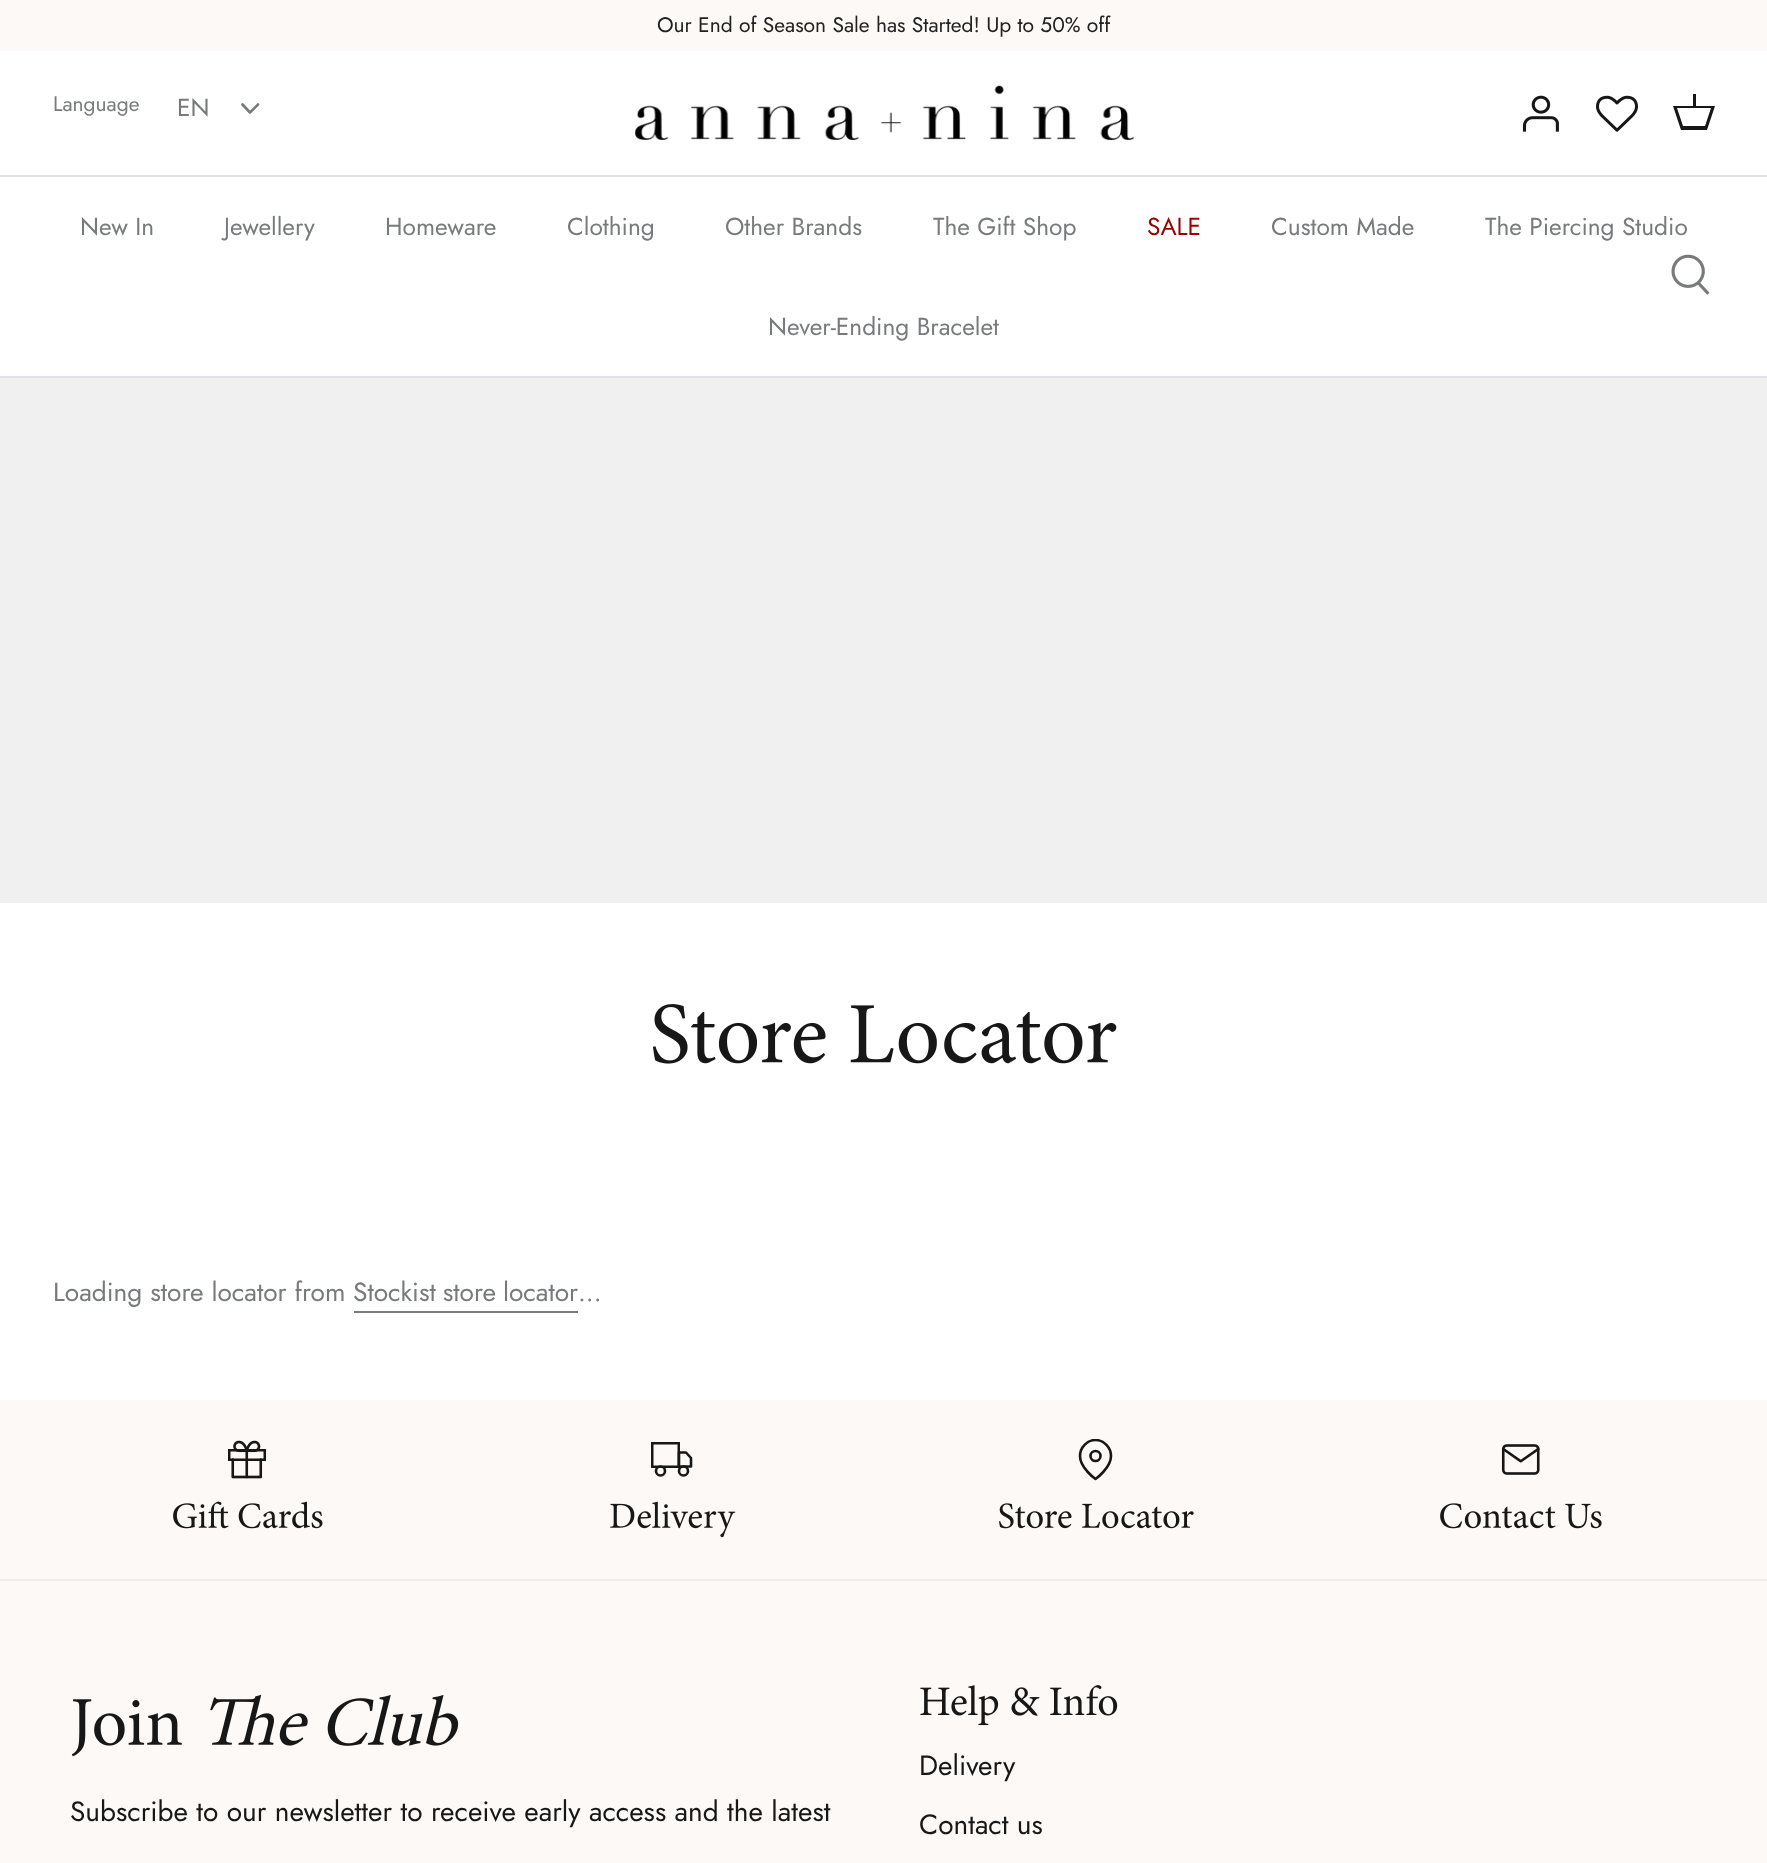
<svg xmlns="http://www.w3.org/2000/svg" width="1767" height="1863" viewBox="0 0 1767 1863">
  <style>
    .t1 { font: 21px Jost; fill: #212121; }
    .t2 { font: 21px Jost; fill: #787a7c; }
    .t3 { font: 24.5px Jost; fill: #787a7c; }
    .t4 { font: 24.5px Jost; fill: #9a0000; }
    .t5 { font: 26.25px Jost; fill: #787a7c; }
    .t6 { font: 28px Jost; fill: #171717; }
  </style>
  <defs>
    <clipPath id="clip1"><rect x="1075" y="1439" width="42" height="42"/></clipPath>
  </defs>
  <rect width="100%" height="100%" fill="#fff"/>
  <rect x="0" y="0" width="1767" height="51" fill="#fcf9f7"/>
  <text x="657" y="32" class="t1">Our End of Season Sale has Started! Up to 50% off</text>
  <rect x="0" y="175" width="1767" height="2" fill="#dfe3e8"/>
  <text x="53" y="111" class="t2">Language</text>
  <text x="177" y="116" class="t3">EN</text>
  <path d="M242.5 104.5L250 112.5L258 104.5" fill="none" stroke="#787a7c" stroke-width="2.6" stroke-linecap="round" stroke-linejoin="round"/>
  <image x="635" y="85" width="499" height="56" href="images/1.png"/>
  <image x="1522" y="95" width="37" height="37" href="images/2.png"/>
  <image x="1596" y="95" width="42" height="37" href="images/3.png"/>
  <path d="M1693 106V94H1696V106H1715L1707 130H1681L1673 106ZM1677 108L1683 126H1705L1711 108Z" fill="#171717"/>
  <rect x="0" y="376" width="1767" height="2" fill="#dfe3e8"/>
  <text x="80" y="235" class="t3">New In</text>
  <text x="224" y="235" class="t3">Jewellery</text>
  <text x="385" y="235" class="t3">Homeware</text>
  <text x="567" y="235" class="t3">Clothing</text>
  <text x="725" y="235" class="t3">Other Brands</text>
  <text x="933" y="235" class="t3">The Gift Shop</text>
  <text x="1147" y="235" class="t4">SALE</text>
  <text x="1271" y="235" class="t3">Custom Made</text>
  <text x="1485" y="235" class="t3">The Piercing Studio</text>
  <text x="768" y="335" class="t3">Never-Ending Bracelet</text>
  <image x="1671" y="254" width="39" height="41" href="images/4.png"/>
  <rect x="0" y="378" width="1767" height="525" fill="#f0f0f0"/>
  <image x="653" y="1004" width="464" height="60" href="images/5.png"/>
  <text x="53" y="1301" class="t5">Loading store locator from</text>
  <text x="353" y="1301" word-spacing="-1" class="t5">Stockist store locator</text>
  <rect x="354" y="1311" width="224" height="2" fill="#787a7c"/>
  <text x="578" y="1301" class="t5">...</text>
  <rect x="0" y="1400" width="1767" height="463" fill="#fcf9f7"/>
  <image x="228" y="1440" width="38" height="39" href="images/6.png"/>
  <image x="173" y="1501" width="150" height="28" href="images/7.png"/>
  <rect x="652.25" y="1443.25" width="26.5" height="23.5" fill="none" stroke="#171717" stroke-width="2.5"/>
  <path d="M679 1452.5H686L691 1458V1466.5H679Z" fill="none" stroke="#171717" stroke-width="2.6" stroke-linecap="round" stroke-linejoin="round"/>
  <circle cx="660.5" cy="1471" r="4.5" fill="none" stroke="#171717" stroke-width="2.6"/>
  <circle cx="683.5" cy="1471" r="4.5" fill="none" stroke="#171717" stroke-width="2.6"/>
  <image x="610" y="1501" width="126" height="37" href="images/8.png"/>
  <g clip-path="url(#clip1)">
    <path d="M1111 1456C1111 1468 1095.5 1479 1095.5 1479C1095.5 1479 1080 1468 1080 1456C1080 1447.5 1087 1440 1095.5 1440C1104 1440 1111 1447.5 1111 1456Z" fill="none" stroke="#171717" stroke-width="2.6" stroke-linecap="round" stroke-linejoin="round"/>
  </g>
  <circle cx="1095.5" cy="1456" r="5" fill="none" stroke="#171717" stroke-width="2.6"/>
  <image x="999" y="1503" width="195" height="26" href="images/9.png"/>
  <image x="1501" y="1444" width="39" height="31" href="images/10.png"/>
  <image x="1440" y="1503" width="162" height="26" href="images/11.png"/>
  <rect x="0" y="1579" width="1767" height="2" fill="#ededed"/>
  <image x="71" y="1699" width="111" height="58" href="images/12.png"/>
  <image x="210" y="1694" width="249" height="52" href="images/13.png"/>
  <text x="70" y="1821" class="t6">Subscribe to our newsletter to receive early access and the latest</text>
  <image x="920" y="1685" width="198" height="41" href="images/14.png"/>
  <text x="919" y="1775" class="t6">Delivery</text>
  <text x="919" y="1834" class="t6">Contact us</text>
</svg>
